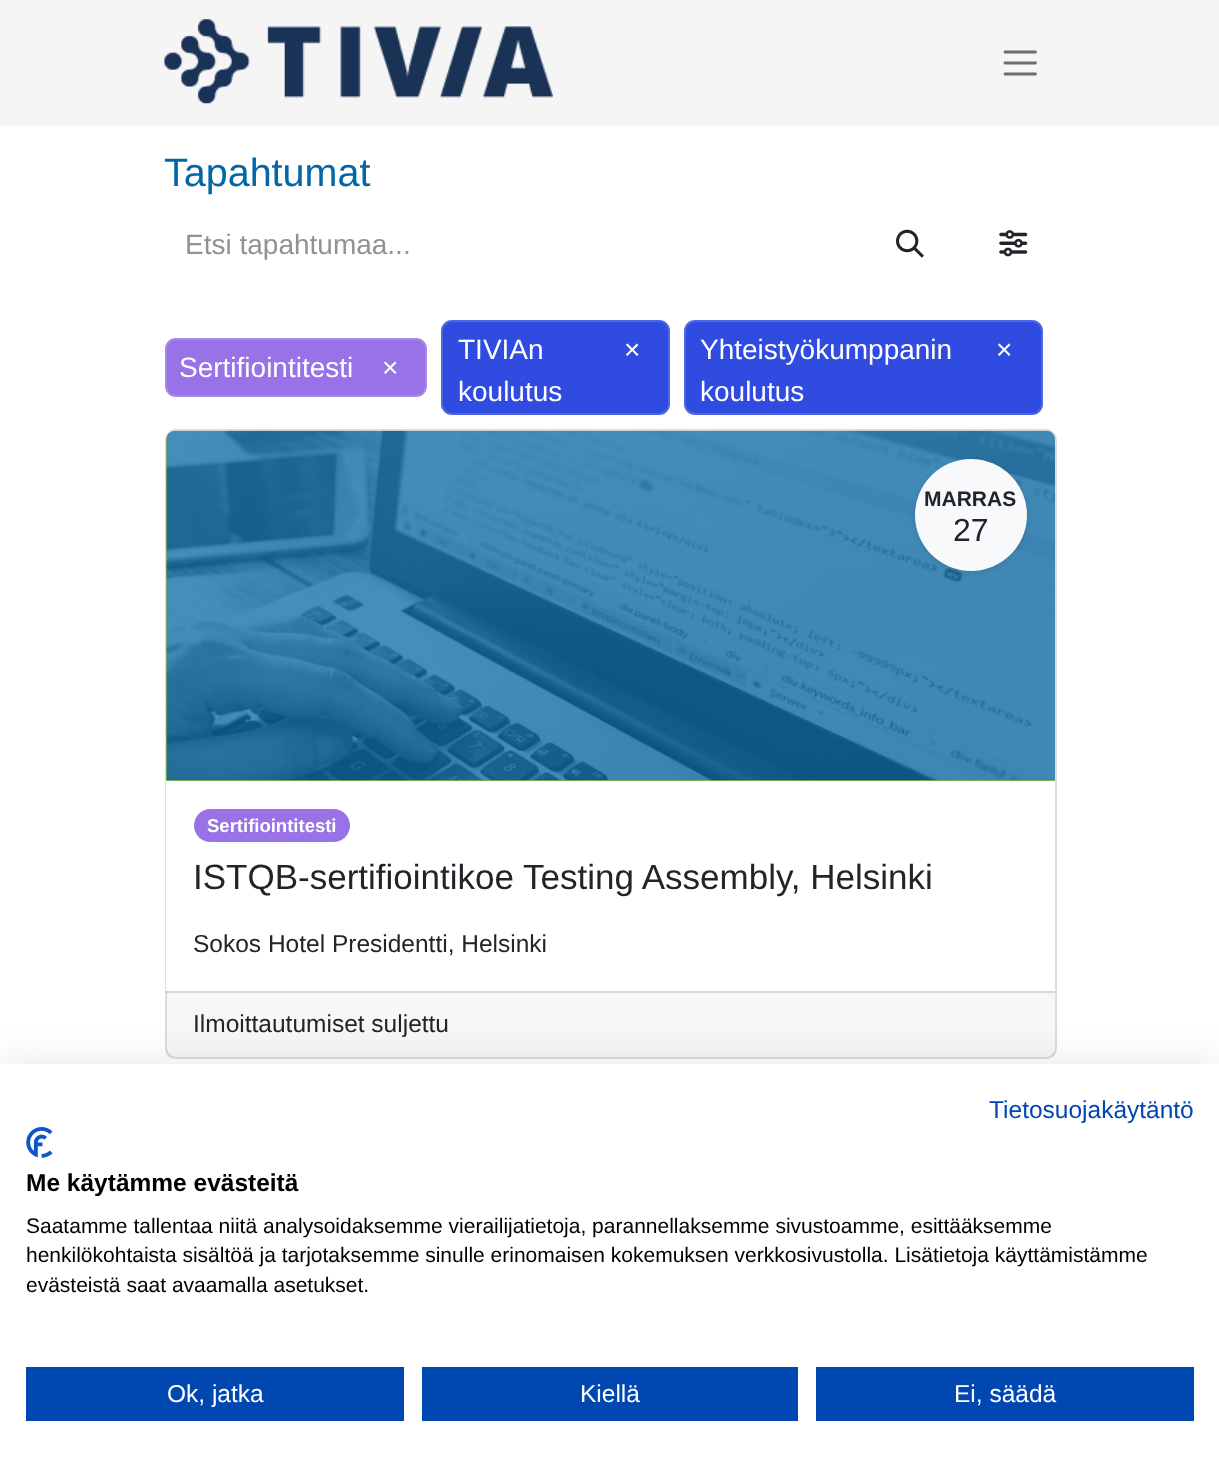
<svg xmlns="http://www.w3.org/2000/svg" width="1219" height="1467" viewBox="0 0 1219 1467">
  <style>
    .t1 { font: 39.5px Arimo; fill: #0367a6; }
    .t2 { font: 28px Arimo; fill: #909294; }
    .t3 { font: 28px Arimo; fill: #fff; }
    .t4 { font: bold 21px Arimo; fill: #212529; }
    .t5 { font: 32px Arimo; fill: #212529; }
    .t6 { font: bold 18.5px Arimo; fill: #fff; }
    .t7 { font: 35px Arimo; fill: #212529; }
    .t8 { font: 24.5px Arimo; fill: #212529; }
    .t9 { font: 24.5px Arimo; fill: #0047b2; }
    .t10 { font: bold 24.5px Arimo; fill: #000; }
    .t11 { font: 21px Arimo; fill: #000; }
    .t12 { font: 24.5px Arimo; fill: #fff; }
  </style>
  <rect width="100%" height="100%" fill="#fff"/>
  <rect x="0" y="2" width="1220" height="122" fill="#0000001a" filter="blur(2.5px)"/>
  <rect x="0" y="0" width="1219" height="123" fill="#f5f5f5"/>
  <image x="164" y="19" width="389" height="85" href="images/1.png"/>
  <path d="M1005 52H1035.5M1005 63H1035.5M1005 74H1035.5" fill="none" stroke="#6e6e6e" stroke-width="2.8" stroke-linecap="round"/>
  <text x="164" y="186" class="t1">Tapahtumat</text>
  <text x="185" y="254" class="t2">Etsi tapahtumaa...</text>
  <image x="896" y="229" width="28" height="29" href="images/2.png"/>
  <image x="999" y="230" width="29" height="27" href="images/3.png"/>
  <rect x="165" y="338" width="262" height="59" rx="11" fill="#9872e6"/>
  <rect x="166" y="339" width="260" height="57" rx="10" fill="none" stroke="#ffffff26" stroke-width="2"/>
  <text x="179" y="377" class="t3">Sertifiointitesti</text>
  <text x="382" y="377" class="t3">×</text>
  <rect x="441" y="320" width="229" height="95" rx="11" fill="#304be0"/>
  <rect x="442" y="321" width="227" height="93" rx="10" fill="none" stroke="#ffffff26" stroke-width="2"/>
  <text x="458" y="359" class="t3">TIVIAn</text>
  <text x="624" y="359" class="t3">×</text>
  <text x="458" y="401" class="t3">koulutus</text>
  <rect x="684" y="320" width="359" height="95" rx="11" fill="#304be0"/>
  <rect x="685" y="321" width="357" height="93" rx="10" fill="none" stroke="#ffffff26" stroke-width="2"/>
  <text x="700" y="359" class="t3">Yhteistyökumppanin</text>
  <text x="996" y="359" class="t3">×</text>
  <text x="700" y="401" class="t3">koulutus</text>
  <rect x="166" y="430" width="890" height="628" rx="10" fill="none" stroke="#dededf" stroke-width="2"/>
  <path d="M175 431H1046C1051 431 1055 435 1055 440V781H166V440C166 435 170 431 175 431Z" fill="#8fc038"/>
  <image x="166" y="430" width="889" height="351" href="images/4.png"/>
  <rect x="915" y="460" width="112" height="112" rx="56" fill="#0000001a" filter="blur(2.5px)"/>
  <circle cx="971" cy="515" r="56" fill="#f8f9fa"/>
  <text x="924" y="506" class="t4">MARRAS</text>
  <text x="953" y="541" class="t5">27</text>
  <rect x="166" y="781" width="1" height="210" fill="#ffffffe6"/>
  <rect x="194" y="809" width="156" height="33" rx="16.5" fill="#9872e6"/>
  <text x="207" y="832" class="t6">Sertifiointitesti</text>
  <text x="193" y="889" class="t7">ISTQB-sertifiointikoe Testing Assembly, Helsinki</text>
  <text x="193" y="952" class="t8">Sokos Hotel Presidentti, Helsinki</text>
  <rect x="166" y="991" width="889" height="66" fill="#00000008"/>
  <rect x="166" y="991" width="889" height="2" fill="#21252926"/>
  <text x="193" y="1032" class="t8">Ilmoittautumiset suljettu</text>
  <rect x="0" y="1064" width="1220" height="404" fill="#0000001a" filter="blur(21px)"/>
  <rect x="0" y="1064" width="1219" height="403" fill="#fff"/>
  <text x="989" y="1118" class="t9">Tietosuojakäytäntö</text>
  <image x="26" y="1127" width="27" height="31" href="images/5.png"/>
  <text x="26" y="1191" class="t10">Me käytämme evästeitä</text>
  <text x="26" y="1233" class="t11">Saatamme tallentaa niitä analysoidaksemme vierailijatietoja, parannellaksemme sivustoamme, esittääksemme</text>
  <text x="26" y="1262" class="t11">henkilökohtaista sisältöä ja tarjotaksemme sinulle erinomaisen kokemuksen verkkosivustolla. Lisätietoja käyttämistämme</text>
  <text x="26" y="1292" class="t11">evästeistä saat avaamalla asetukset.</text>
  <rect x="26" y="1367" width="378" height="54" fill="#0047b2"/>
  <text x="167" y="1402" class="t12">Ok, jatka</text>
  <rect x="422" y="1367" width="376" height="54" fill="#0047b2"/>
  <text x="580" y="1402" class="t12">Kiellä</text>
  <rect x="816" y="1367" width="378" height="54" fill="#0047b2"/>
  <text x="954" y="1402" class="t12">Ei, säädä</text>
</svg>
